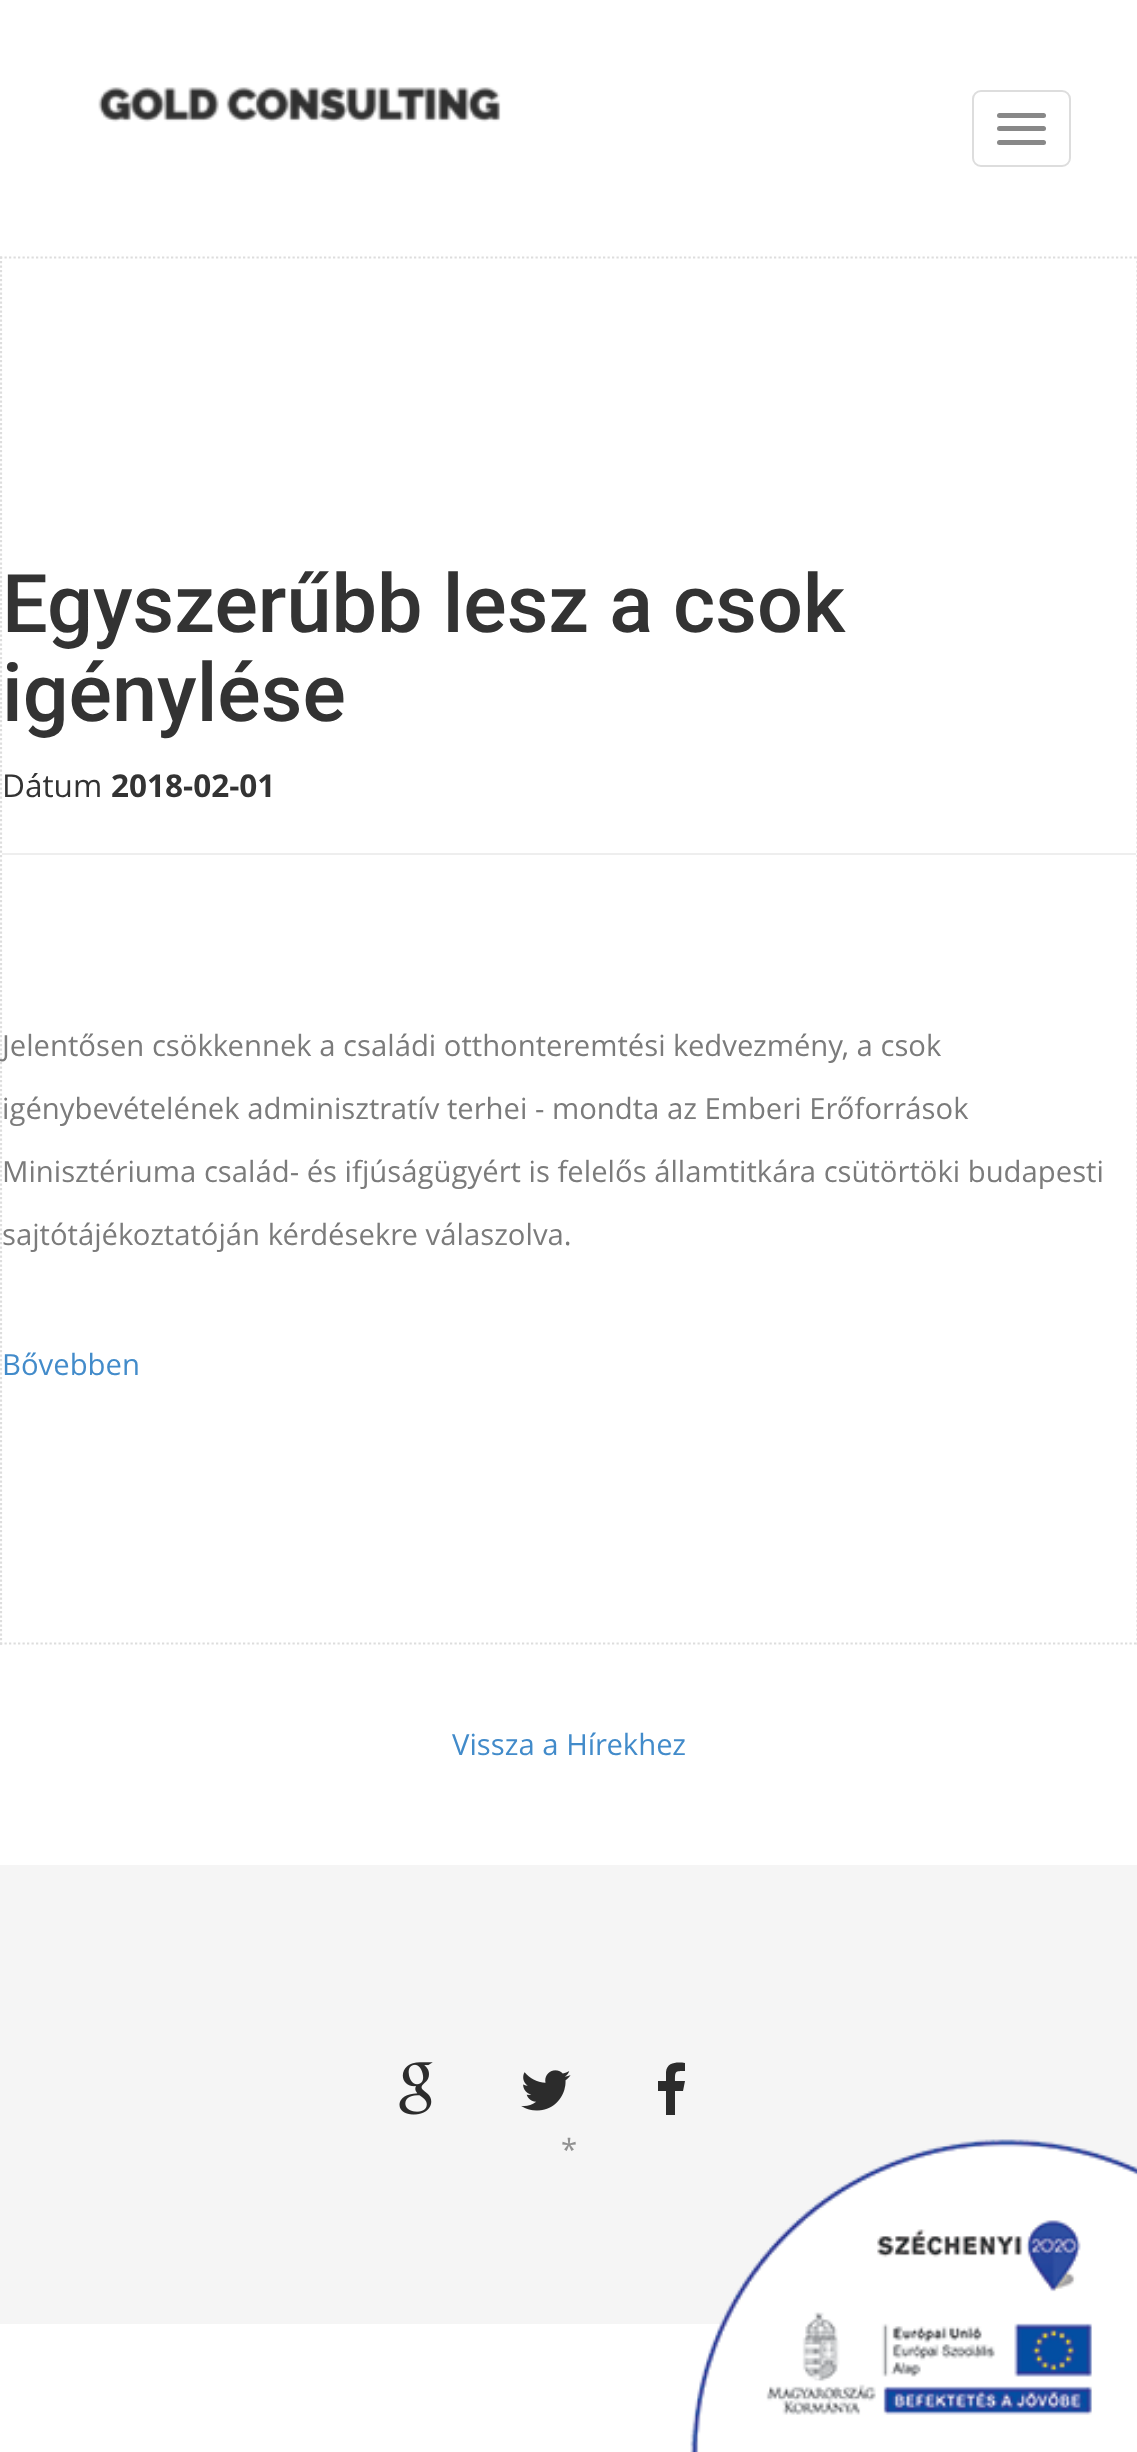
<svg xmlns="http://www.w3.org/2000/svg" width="1137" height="2452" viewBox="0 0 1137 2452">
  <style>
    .t1 { font: 500 81px Roboto; fill: #333; }
    .t2 { font: 31.5px Open Sans; fill: #333; }
    .t3 { font: bold 31.5px Open Sans; fill: #333; }
    .t4 { font: 29.25px Open Sans; fill: #7b7b7b; }
    .t5 { font: 29.25px Open Sans; fill: #428bca; }
    .t6 { font: 29.25px Open Sans; fill: #919191; }
  </style>
  <rect width="100%" height="100%" fill="#fff"/>
  <image x="98" y="87" width="403" height="35" href="images/1.png"/>
  <rect x="973" y="91" width="97" height="75" rx="8" fill="none" stroke="#ddd" stroke-width="2"/>
  <rect x="997" y="113" width="49" height="5" rx="2.5" fill="#888"/>
  <rect x="997" y="126" width="49" height="5" rx="2.5" fill="#888"/>
  <rect x="997" y="140" width="49" height="5" rx="2.5" fill="#888"/>
  <path d="M0 257.5H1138.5" fill="none" stroke="#ddd" stroke-width="2.2" stroke-dasharray="2.25 2.25"/>
  <path d="M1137.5 256.5V1645" fill="none" stroke="#ddd" stroke-width="2.2" stroke-dasharray="2.25 2.25"/>
  <path d="M0 1643.5H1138.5" fill="none" stroke="#ddd" stroke-width="2.2" stroke-dasharray="2.25 2.25"/>
  <path d="M1 256.5V1645" fill="none" stroke="#ddd" stroke-width="2.2" stroke-dasharray="2.25 2.25"/>
  <text x="2" y="632" class="t1">Egyszerűbb lesz a csok</text>
  <text x="2" y="721" class="t1">igénylése</text>
  <text x="2" y="797" class="t2">Dátum</text>
  <text x="111" y="797" class="t3">2018-02-01</text>
  <rect x="2" y="853" width="1134" height="2" fill="#eee"/>
  <text x="2" y="1056" class="t4">Jelentősen csökkennek a családi otthonteremtési kedvezmény, a csok</text>
  <text x="2" y="1119" class="t4">igénybevételének adminisztratív terhei - mondta az Emberi Erőforrások</text>
  <text x="2" y="1182" class="t4">Minisztériuma család- és ifjúságügyért is felelős államtitkára csütörtöki budapesti</text>
  <text x="2" y="1245" class="t4">sajtótájékoztatóján kérdésekre válaszolva.</text>
  <text x="2" y="1375" class="t5">Bővebben</text>
  <text x="452" y="1755" class="t5">Vissza a Hírekhez</text>
  <rect x="0" y="1865" width="1137" height="459" fill="#f5f5f5"/>
  <image x="399" y="2062" width="34" height="53" href="images/2.png"/>
  <image x="521" y="2070" width="50" height="41" href="images/3.png"/>
  <path d="M685 2063V2071C675 2071 675 2071 675 2081H685L683 2091H675V2115H666V2091H658V2081H666V2072C667 2062 677 2062 685 2063Z" fill="#2c2c2c"/>
  <text x="561" y="2160" class="t6">*</text>
  <image x="690" y="2139" width="447" height="313" href="images/4.png"/>
</svg>
